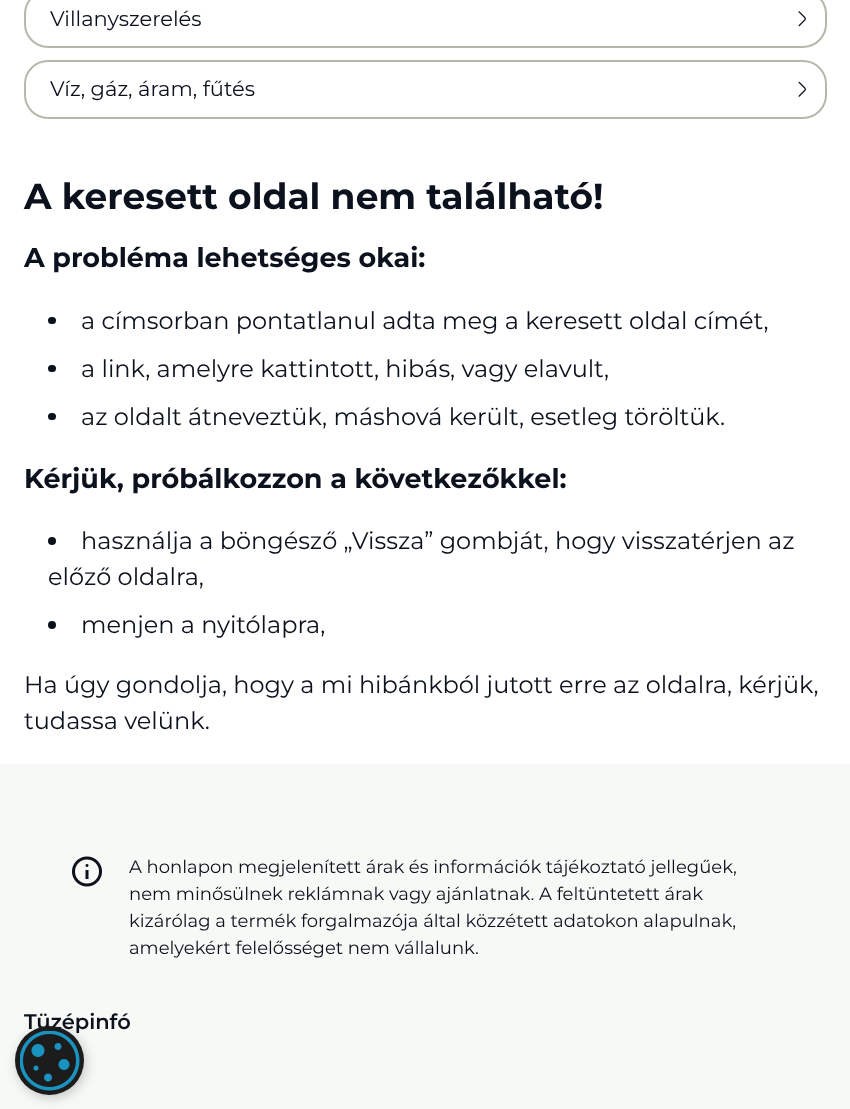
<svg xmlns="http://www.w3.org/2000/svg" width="850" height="1109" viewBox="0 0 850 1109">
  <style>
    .t1 { font: 21px Montserrat; fill: #0c121d; }
    .t2 { font: bold 36px Montserrat; fill: #0c121d; }
    .t3 { font: bold 27px Montserrat; fill: #0c121d; }
    .t4 { font: 24px Montserrat; fill: #0c121d; }
    .t5 { font: 18px Montserrat; fill: #0c121d; }
    .t6 { font: 600 21px Montserrat; fill: #0c121d; }
  </style>
  <rect width="100%" height="100%" fill="#fff"/>
  <rect x="25" y="-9" width="801" height="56" rx="23" fill="none" stroke="#b5b9ac" stroke-width="2"/>
  <text x="50" y="26" class="t1">Villanyszerelés</text>
  <image x="798" y="11" width="8" height="16" href="images/1.png"/>
  <rect x="25" y="61" width="801" height="57" rx="23" fill="none" stroke="#b5b9ac" stroke-width="2"/>
  <text x="50" y="96" class="t1">Víz, gáz, áram, fűtés</text>
  <image x="798" y="81" width="8" height="16" href="images/2.png"/>
  <text x="24" y="209" class="t2">A keresett oldal nem található!</text>
  <text x="24" y="267" class="t3">A probléma lehetséges okai:</text>
  <rect x="48" y="317" width="8" height="7" rx="3.5" fill="#0c121d"/>
  <text x="81" y="329" class="t4">a címsorban pontatlanul adta meg a keresett oldal címét,</text>
  <rect x="48" y="365" width="8" height="7" rx="3.5" fill="#0c121d"/>
  <text x="81" y="377" class="t4">a link, amelyre kattintott, hibás, vagy elavult,</text>
  <rect x="48" y="413" width="8" height="7" rx="3.5" fill="#0c121d"/>
  <text x="81" y="425" class="t4">az oldalt átneveztük, máshová került, esetleg töröltük.</text>
  <text x="24" y="488" class="t3">Kérjük, próbálkozzon a következőkkel:</text>
  <circle cx="52" cy="541" r="4" fill="#0c121d"/>
  <text x="81" y="549" class="t4">használja a böngésző „Vissza” gombját, hogy visszatérjen az</text>
  <text x="48" y="585" class="t4">előző oldalra,</text>
  <circle cx="52" cy="625" r="4" fill="#0c121d"/>
  <text x="81" y="633" class="t4">menjen a nyitólapra,</text>
  <text x="24" y="693" class="t4">Ha úgy gondolja, hogy a mi hibánkból jutott erre az oldalra, kérjük,</text>
  <text x="24" y="729" class="t4">tudassa velünk.</text>
  <rect x="0" y="764" width="850" height="345" fill="#f7f9f6"/>
  <image x="72" y="856" width="30" height="31" href="images/3.png"/>
  <text x="129" y="873" class="t5">A honlapon megjelenített árak és információk tájékoztató jellegűek,</text>
  <text x="129" y="900" class="t5">nem minősülnek reklámnak vagy ajánlatnak. A feltüntetett árak</text>
  <text x="129" y="927" class="t5">kizárólag a termék forgalmazója által közzétett adatokon alapulnak,</text>
  <text x="129" y="954" class="t5">amelyekért felelősséget nem vállalunk.</text>
  <text x="24" y="1029" class="t6">Tüzépinfó</text>
  <rect x="17" y="1029" width="69" height="69" rx="34.5" fill="#00000033" filter="blur(6px)"/>
  <circle cx="49.5" cy="1060.5" r="34.5" fill="#1c1c1c"/>
  <image x="20" y="1031" width="60" height="60" href="images/4.png"/>
</svg>
